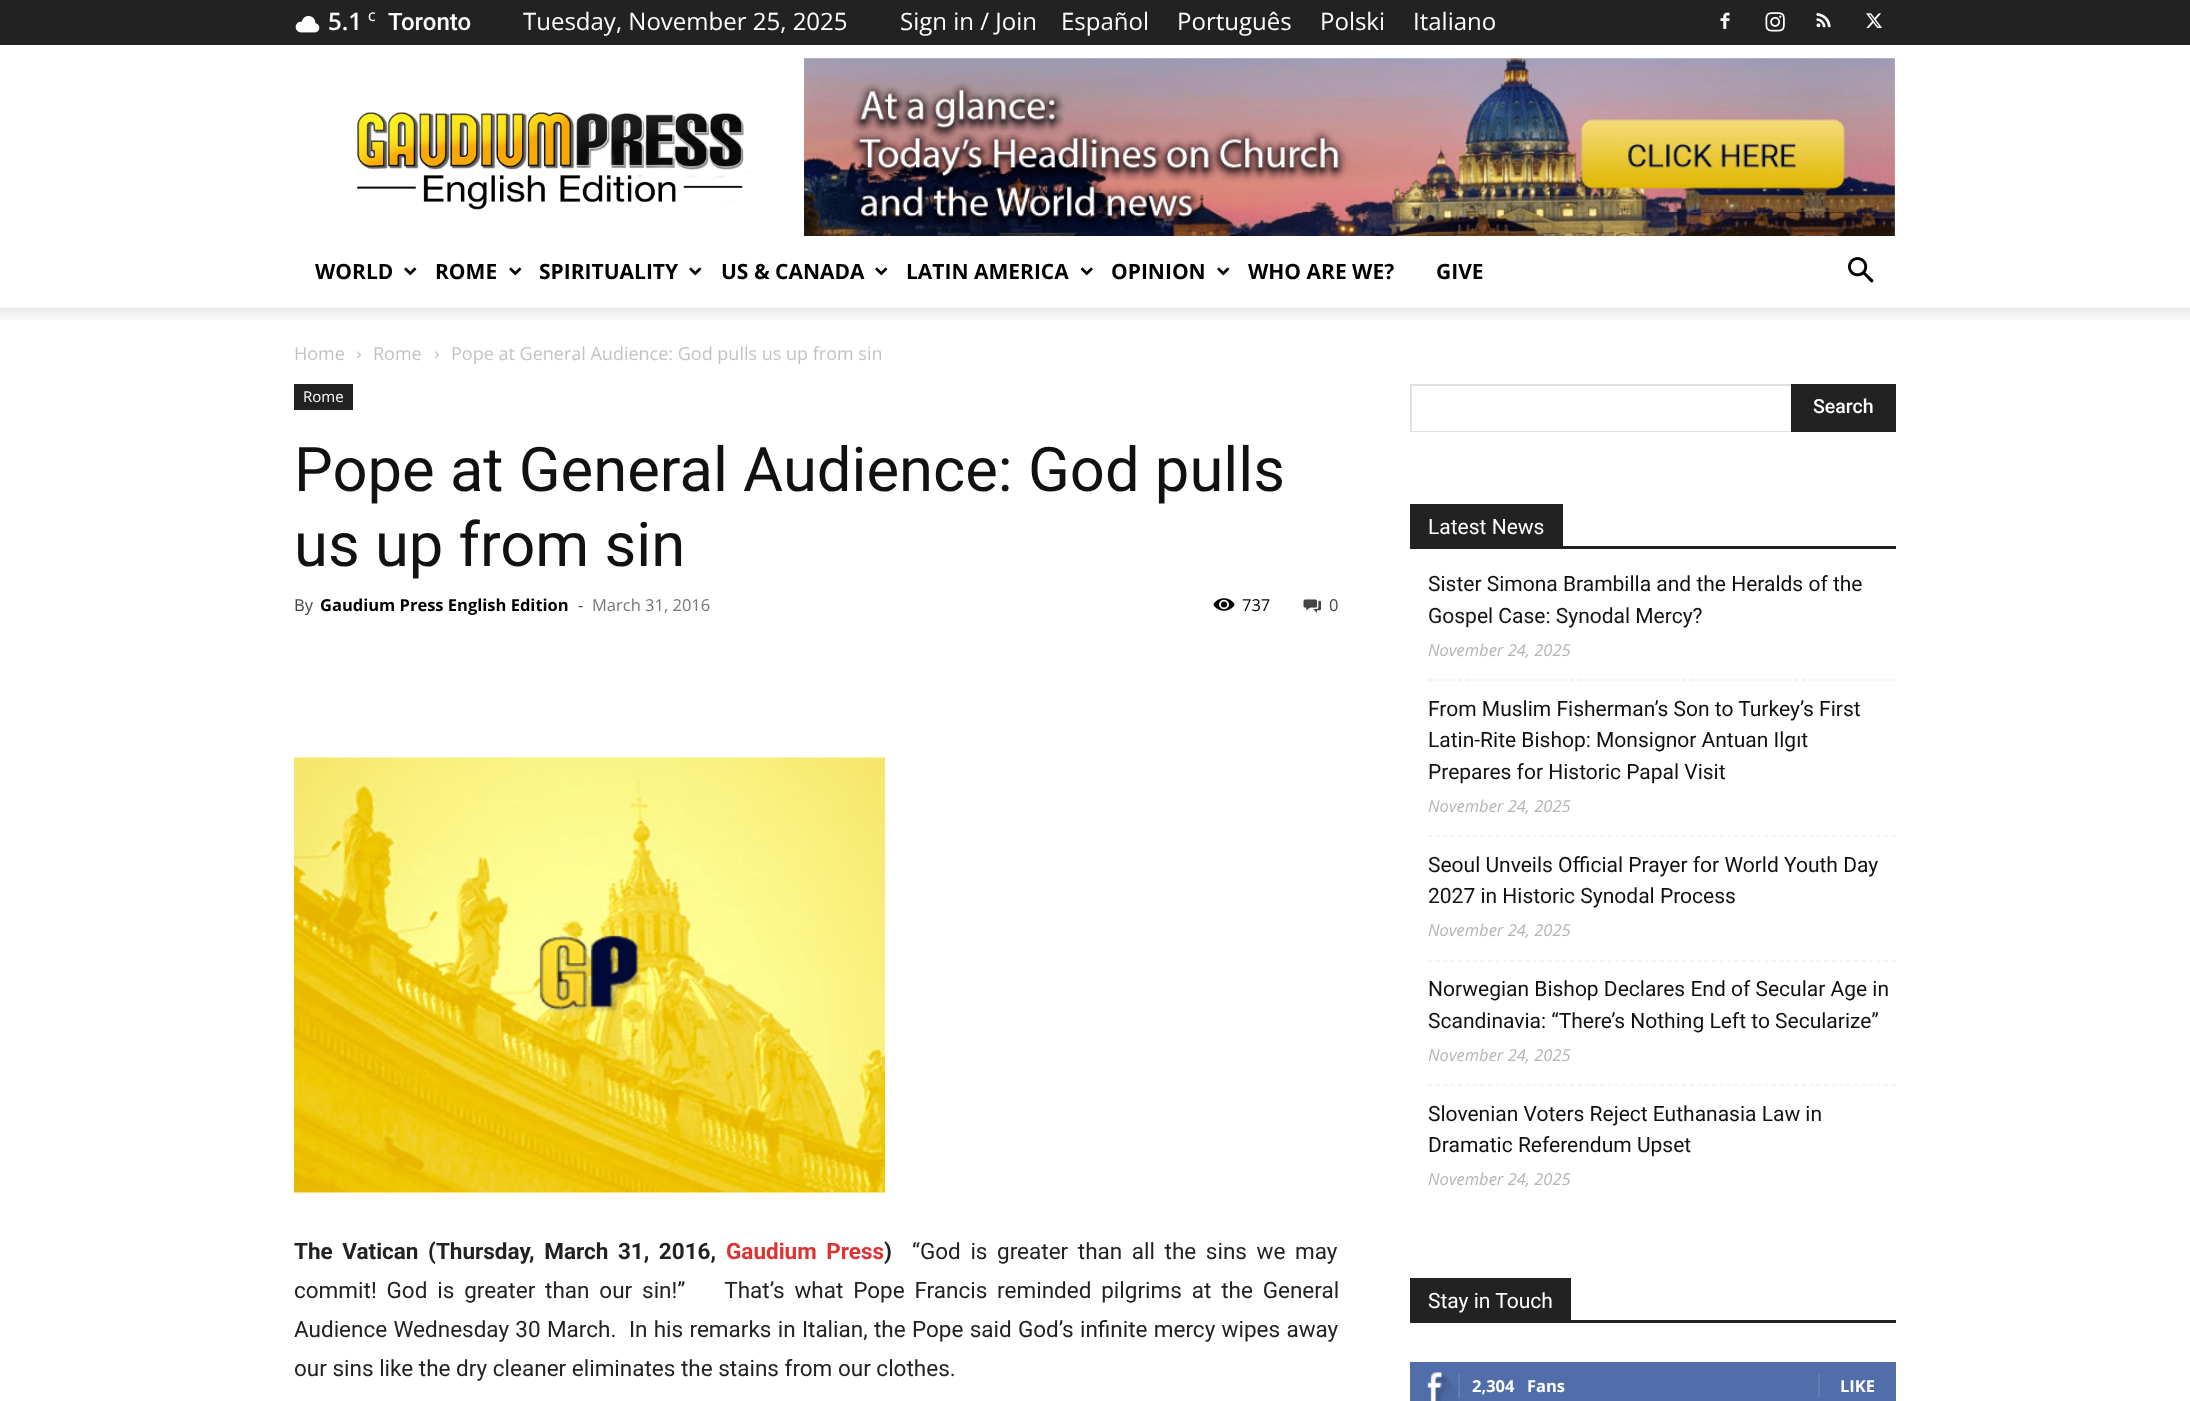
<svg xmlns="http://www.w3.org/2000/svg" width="2190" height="1401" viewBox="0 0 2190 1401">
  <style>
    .t1 { font: 600 24px Open Sans; fill: #fff; }
    .t2 { font: 600 12px Open Sans; fill: #fff; }
    .t3 { font: 500 24px Roboto; fill: #fff; }
    .t4 { font: 24px Open Sans; fill: #fff; }
    .t5 { font: bold 21px Open Sans; fill: #000; }
    .t6 { font: 18px Open Sans; fill: #c3c3c3; }
    .t7 { font: 15px Open Sans; fill: #fff; }
    .t8 { font: 61.5px Roboto; fill: #111; }
    .t9 { font: 16.5px Open Sans; fill: #444; }
    .t10 { font: bold 16.5px Open Sans; fill: #000; }
    .t11 { font: 16.5px Open Sans; fill: #767676; }
    .t12 { font: 16.5px Open Sans; fill: #000; }
    .t13 { font: bold 22.5px Roboto; fill: #222; }
    .t14 { font: bold 22.5px Roboto; fill: #d33; }
    .t15 { font: 22.5px Roboto; fill: #222; }
    .t16 { font: 500 19.5px Roboto; fill: #fff; }
    .t17 { font: 21px Roboto; fill: #fff; }
    .t18 { font: 21px Roboto; fill: #111; }
    .t19 { font: italic 16.5px Open Sans; fill: #b5b5b5; }
    .t20 { font: bold 16.5px Open Sans; fill: #fff; }
  </style>
  <rect width="100%" height="100%" fill="#fff"/>
  <rect x="0" y="0" width="2190" height="45" fill="#222"/>
  <image x="295" y="16" width="25" height="17" href="images/1.png"/>
  <text x="328" y="30" class="t1">5.1</text>
  <text x="368" y="21" class="t2">C</text>
  <text x="388" y="30" class="t3">Toronto</text>
  <text x="523" y="30" class="t4">Tuesday, November 25, 2025</text>
  <text x="900" y="30" class="t4">Sign in / Join</text>
  <text x="1061" y="30" class="t4">Español</text>
  <text x="1177" y="30" class="t4">Português</text>
  <text x="1320" y="30" class="t4">Polski</text>
  <text x="1413" y="30" class="t4">Italiano</text>
  <image x="1720" y="12" width="10" height="17" href="images/2.png"/>
  <image x="1765" y="12" width="20" height="20" href="images/3.png"/>
  <image x="1816" y="13" width="15" height="15" href="images/4.png"/>
  <image x="1866" y="13" width="16" height="15" href="images/5.png"/>
  <image x="357" y="112" width="395" height="98" href="images/6.png"/>
  <image x="804" y="58" width="1091" height="178" href="images/7.png"/>
  <text x="315" y="279" class="t5">WORLD</text>
  <image x="404" y="267" width="13" height="9" href="images/8.png"/>
  <text x="435" y="279" class="t5">ROME</text>
  <image x="509" y="267" width="13" height="9" href="images/8.png"/>
  <text x="539" y="279" class="t5">SPIRITUALITY</text>
  <image x="689" y="267" width="13" height="9" href="images/8.png"/>
  <text x="721" y="279" class="t5">US &amp; CANADA</text>
  <image x="875" y="267" width="13" height="9" href="images/8.png"/>
  <text x="906" y="279" class="t5">LATIN AMERICA</text>
  <image x="1080" y="267" width="13" height="9" href="images/9.png"/>
  <text x="1111" y="279" class="t5">OPINION</text>
  <image x="1217" y="267" width="13" height="9" href="images/8.png"/>
  <text x="1248" y="279" class="t5">WHO ARE WE?</text>
  <text x="1436" y="279" class="t5">GIVE</text>
  <image x="1848" y="257" width="26" height="26" href="images/10.png"/>
  <image x="0" y="307" width="2190" height="13" href="images/11.png"/>
  <text x="294" y="360" class="t6">Home</text>
  <image x="357" y="351" width="4" height="8" href="images/12.png"/>
  <text x="373" y="360" class="t6">Rome</text>
  <image x="435" y="351" width="4" height="8" href="images/12.png"/>
  <text x="451" y="360" class="t6">Pope at General Audience: God pulls us up from sin</text>
  <rect x="294" y="384" width="59" height="26" fill="#222"/>
  <text x="303" y="402" class="t7">Rome</text>
  <text x="294" y="491" class="t8">Pope at General Audience: God pulls</text>
  <text x="294" y="566" class="t8">us up from sin</text>
  <text x="294" y="611" class="t9">By</text>
  <text x="320" y="611" class="t10">Gaudium Press English Edition</text>
  <text x="578" y="611" class="t9">-</text>
  <text x="592" y="611" class="t11">March 31, 2016</text>
  <image x="1213" y="598" width="22" height="13" href="images/13.png"/>
  <text x="1242" y="611" class="t12">737</text>
  <image x="1303" y="599" width="19" height="14" href="images/14.png"/>
  <text x="1329" y="611" class="t9">0</text>
  <image x="294" y="757" width="591" height="436" href="images/15.png"/>
  <text x="294" y="1259" word-spacing="4" class="t13">The Vatican (Thursday, March 31, 2016,</text>
  <text x="726" y="1259" word-spacing="4" class="t14">Gaudium Press</text>
  <text x="884" y="1259" class="t13">)</text>
  <text x="912" y="1259" word-spacing="4" class="t15">“God is greater than all the sins we may</text>
  <text x="294" y="1298" word-spacing="4.25" class="t15" xml:space="preserve">commit! God is greater than our sin!”    That’s what Pope Francis reminded pilgrims at the General</text>
  <text x="294" y="1337" word-spacing="0.7" class="t15" xml:space="preserve">Audience Wednesday 30 March.  In his remarks in Italian, the Pope said God’s infinite mercy wipes away</text>
  <text x="294" y="1376" class="t15">our sins like the dry cleaner eliminates the stains from our clothes.</text>
  <rect x="1410" y="384" width="381" height="2" fill="#e1e1e1"/>
  <rect x="1410" y="431" width="381" height="1" fill="#e1e1e1"/>
  <rect x="1410" y="384" width="2" height="48" fill="#e1e1e1"/>
  <rect x="1791" y="384" width="105" height="48" fill="#222"/>
  <text x="1813" y="413" class="t16">Search</text>
  <rect x="1410" y="546" width="486" height="3" fill="#222"/>
  <rect x="1410" y="504" width="153" height="42" fill="#222"/>
  <text x="1428" y="534" class="t17">Latest News</text>
  <path d="M1428 680H1896" fill="none" stroke="#f1f1f1" stroke-width="1.5" stroke-dasharray="4.5 2.97"/>
  <text x="1428" y="591" class="t18">Sister Simona Brambilla and the Heralds of the</text>
  <text x="1428" y="623" class="t18">Gospel Case: Synodal Mercy?</text>
  <text x="1428" y="656" class="t19">November 24, 2025</text>
  <path d="M1428 836H1896" fill="none" stroke="#f1f1f1" stroke-width="1.5" stroke-dasharray="4.5 2.97"/>
  <text x="1428" y="716" class="t18">From Muslim Fisherman’s Son to Turkey’s First</text>
  <text x="1428" y="747" class="t18">Latin-Rite Bishop: Monsignor Antuan Ilgıt</text>
  <text x="1428" y="779" class="t18">Prepares for Historic Papal Visit</text>
  <text x="1428" y="812" class="t19">November 24, 2025</text>
  <path d="M1428 961H1896" fill="none" stroke="#f1f1f1" stroke-width="1.5" stroke-dasharray="4.5 2.97"/>
  <text x="1428" y="872" class="t18">Seoul Unveils Official Prayer for World Youth Day</text>
  <text x="1428" y="903" class="t18">2027 in Historic Synodal Process</text>
  <text x="1428" y="936" class="t19">November 24, 2025</text>
  <path d="M1428 1085H1896" fill="none" stroke="#f1f1f1" stroke-width="1.5" stroke-dasharray="4.5 2.97"/>
  <text x="1428" y="996" class="t18">Norwegian Bishop Declares End of Secular Age in</text>
  <text x="1428" y="1028" class="t18">Scandinavia: “There’s Nothing Left to Secularize”</text>
  <text x="1428" y="1061" class="t19">November 24, 2025</text>
  <text x="1428" y="1121" class="t18">Slovenian Voters Reject Euthanasia Law in</text>
  <text x="1428" y="1152" class="t18">Dramatic Referendum Upset</text>
  <text x="1428" y="1185" class="t19">November 24, 2025</text>
  <rect x="1410" y="1320" width="486" height="3" fill="#222"/>
  <rect x="1410" y="1278" width="161" height="42" fill="#222"/>
  <text x="1428" y="1308" class="t17">Stay in Touch</text>
  <rect x="1410" y="1362" width="486" height="39" fill="#516eab"/>
  <image x="1427" y="1372" width="31" height="29" href="images/16.png"/>
  <rect x="1458" y="1374" width="2" height="24" fill="#627db3"/>
  <text x="1472" y="1392" class="t20">2,304</text>
  <text x="1527" y="1392" class="t20">Fans</text>
  <rect x="1818" y="1374" width="2" height="24" fill="#627db3"/>
  <text x="1840" y="1392" class="t20">LIKE</text>
</svg>
